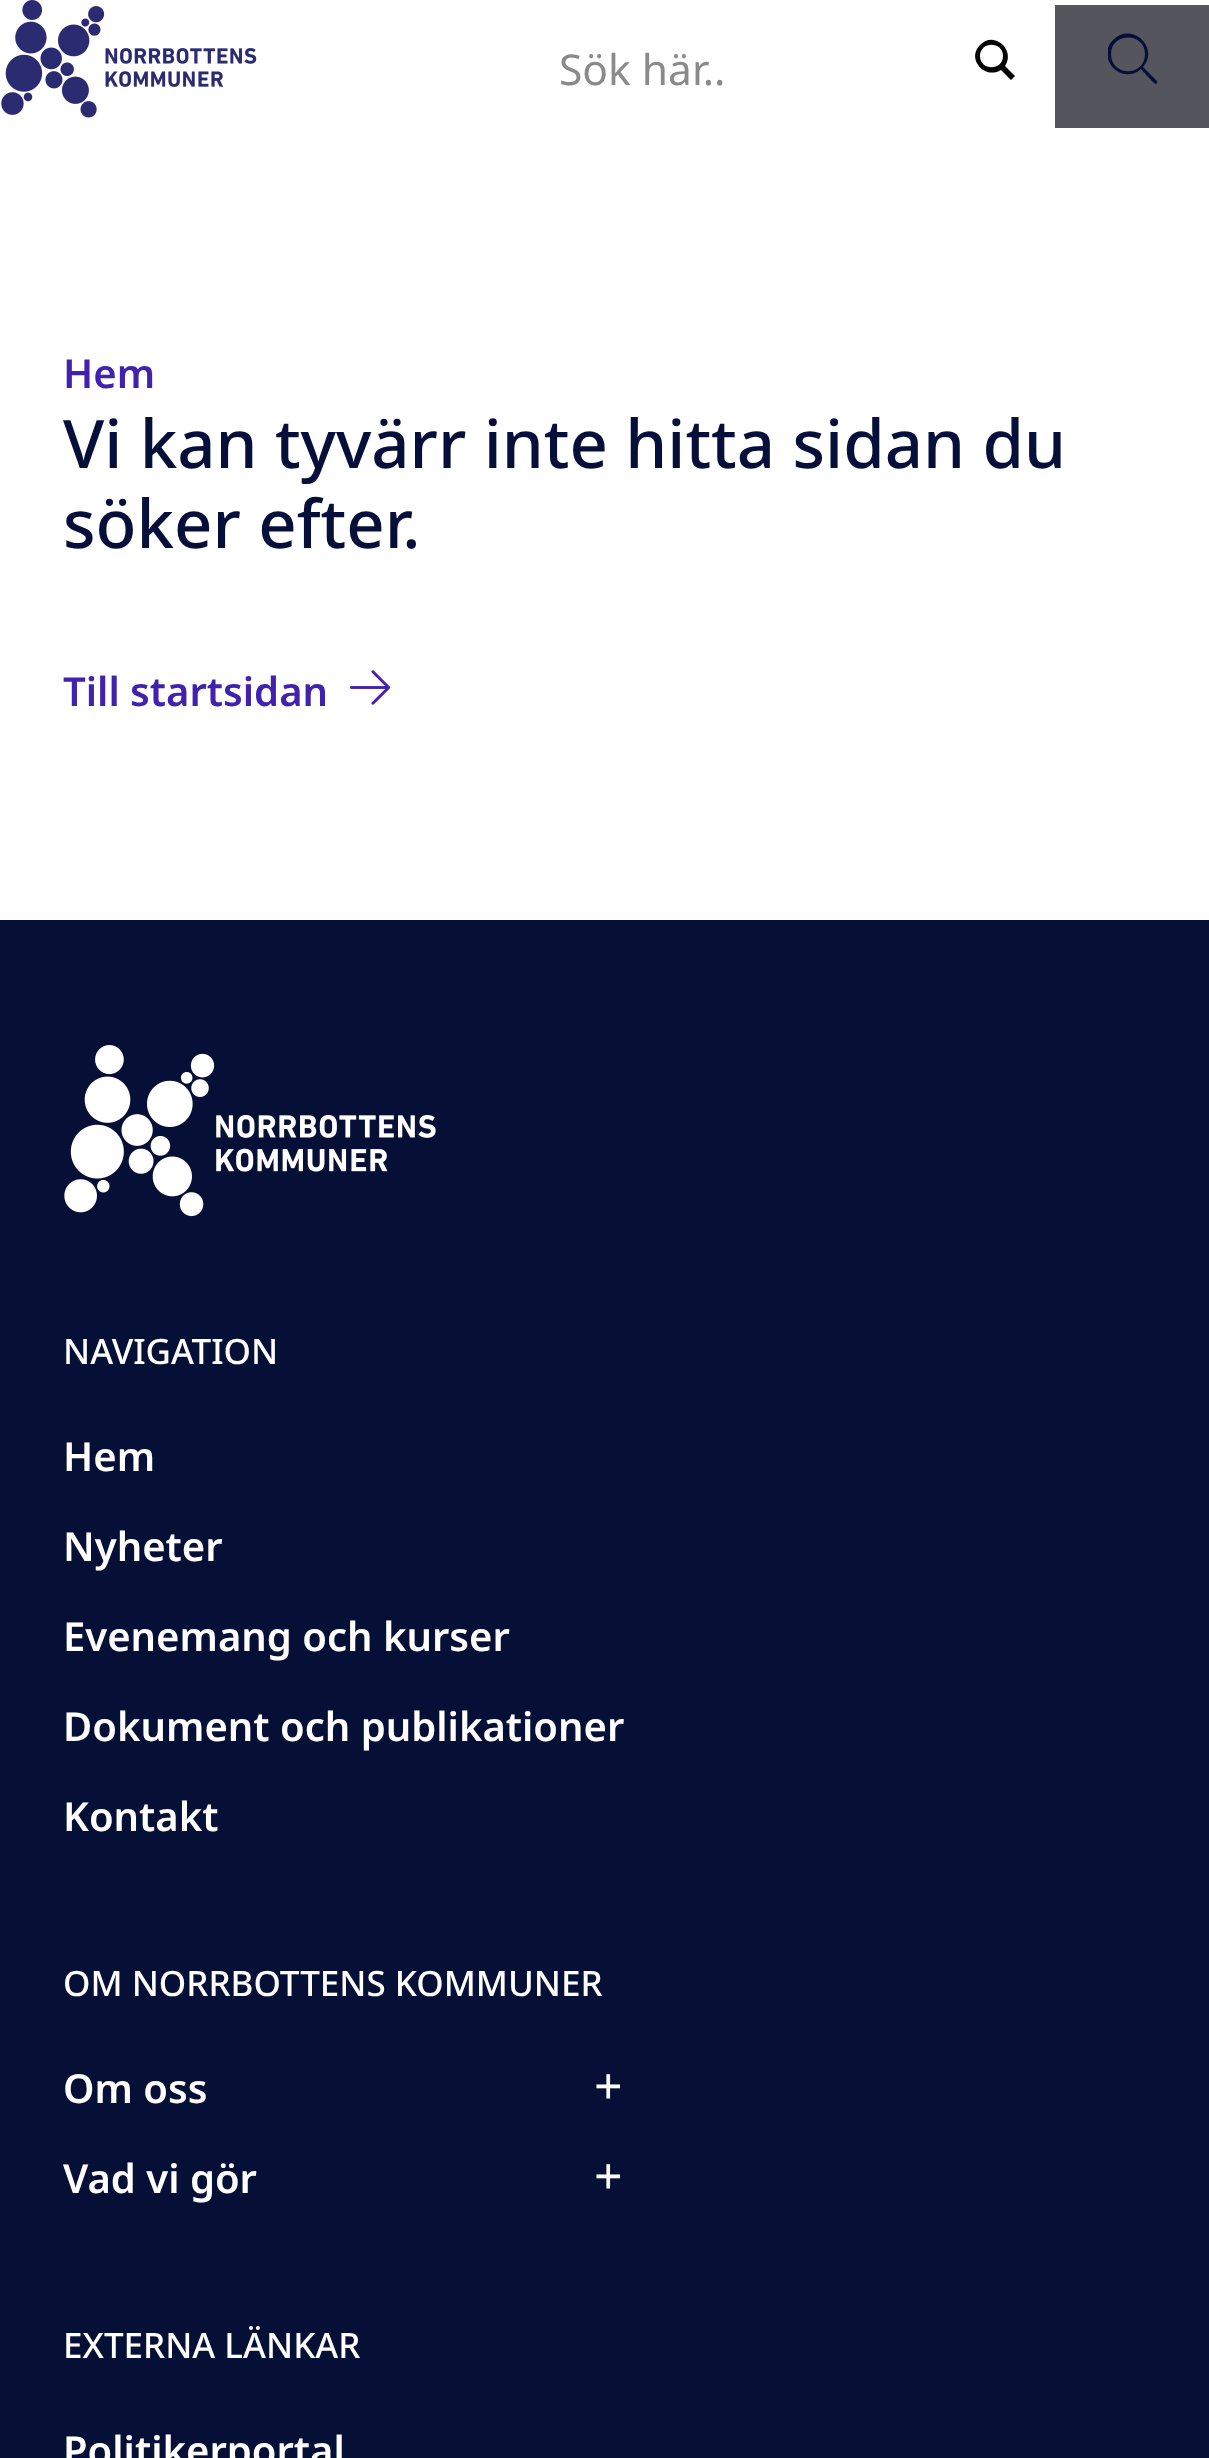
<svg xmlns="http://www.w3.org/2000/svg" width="1209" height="2458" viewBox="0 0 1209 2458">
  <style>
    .t1 { font: 42.5px Noto Sans; fill: #8a8a8a; }
    .t2 { font: 600 40px Noto Sans; fill: #4022af; }
    .t3 { font: 500 67px Noto Sans; fill: #060f39; }
    .t4 { font: 500 35px Noto Sans; fill: #fff; }
    .t5 { font: 600 40px Noto Sans; fill: #fff; }
    .t6 { font: 50px Noto Sans; fill: #fff; }
  </style>
  <defs>
    <clipPath id="clip1"><rect x="1108" y="33" width="50" height="52"/></clipPath>
  </defs>
  <rect width="100%" height="100%" fill="#fff"/>
  <image x="1" y="0" width="256" height="118" href="images/1.png"/>
  <text x="559" y="85" class="t1">Sök här..</text>
  <path d="M1015 76L1005 66C1016 50 994 30 980 45C966 59 985 80 1001 70L1011 80ZM980 56C980 41 1003 41 1003 56C1003 71 980 71 980 56Z" fill="#000"/>
  <rect x="1055" y="5" width="154" height="123" fill="#55555e"/>
  <g clip-path="url(#clip1)">
    <path d="M1145 54C1145 32 1111 32 1111 54C1111 77 1145 77 1145 54ZM1141 69C1122 86 1095 58 1113 40C1132 21 1160 48 1143 67L1157 81C1158 82 1157 83 1156 84C1154 84 1143 71 1141 69Z" fill="#060f39"/>
  </g>
  <text x="63" y="388" class="t2">Hem</text>
  <text x="63" y="468" class="t3">Vi kan tyvärr inte hitta sidan du</text>
  <text x="63" y="548" class="t3">söker efter.</text>
  <text x="63" y="706" class="t2">Till startsidan</text>
  <image x="349" y="670" width="42" height="35" href="images/2.png"/>
  <rect x="0" y="920" width="1209" height="1538" fill="#061037"/>
  <image x="64" y="1045" width="372" height="172" href="images/3.png"/>
  <text x="63" y="1364" class="t4">NAVIGATION</text>
  <text x="63" y="1471" class="t5">Hem</text>
  <text x="63" y="1561" class="t5">Nyheter</text>
  <text x="63" y="1651" class="t5">Evenemang och kurser</text>
  <text x="63" y="1741" class="t5">Dokument och publikationer</text>
  <text x="63" y="1831" class="t5">Kontakt</text>
  <text x="63" y="1996" class="t4">OM NORRBOTTENS KOMMUNER</text>
  <text x="63" y="2103" class="t5">Om oss</text>
  <text x="594" y="2104" class="t6">+</text>
  <text x="63" y="2193" class="t5">Vad vi gör</text>
  <text x="594" y="2194" class="t6">+</text>
  <text x="63" y="2358" class="t4">EXTERNA LÄNKAR</text>
  <text x="63" y="2465" class="t5">Politikerportal</text>
</svg>
